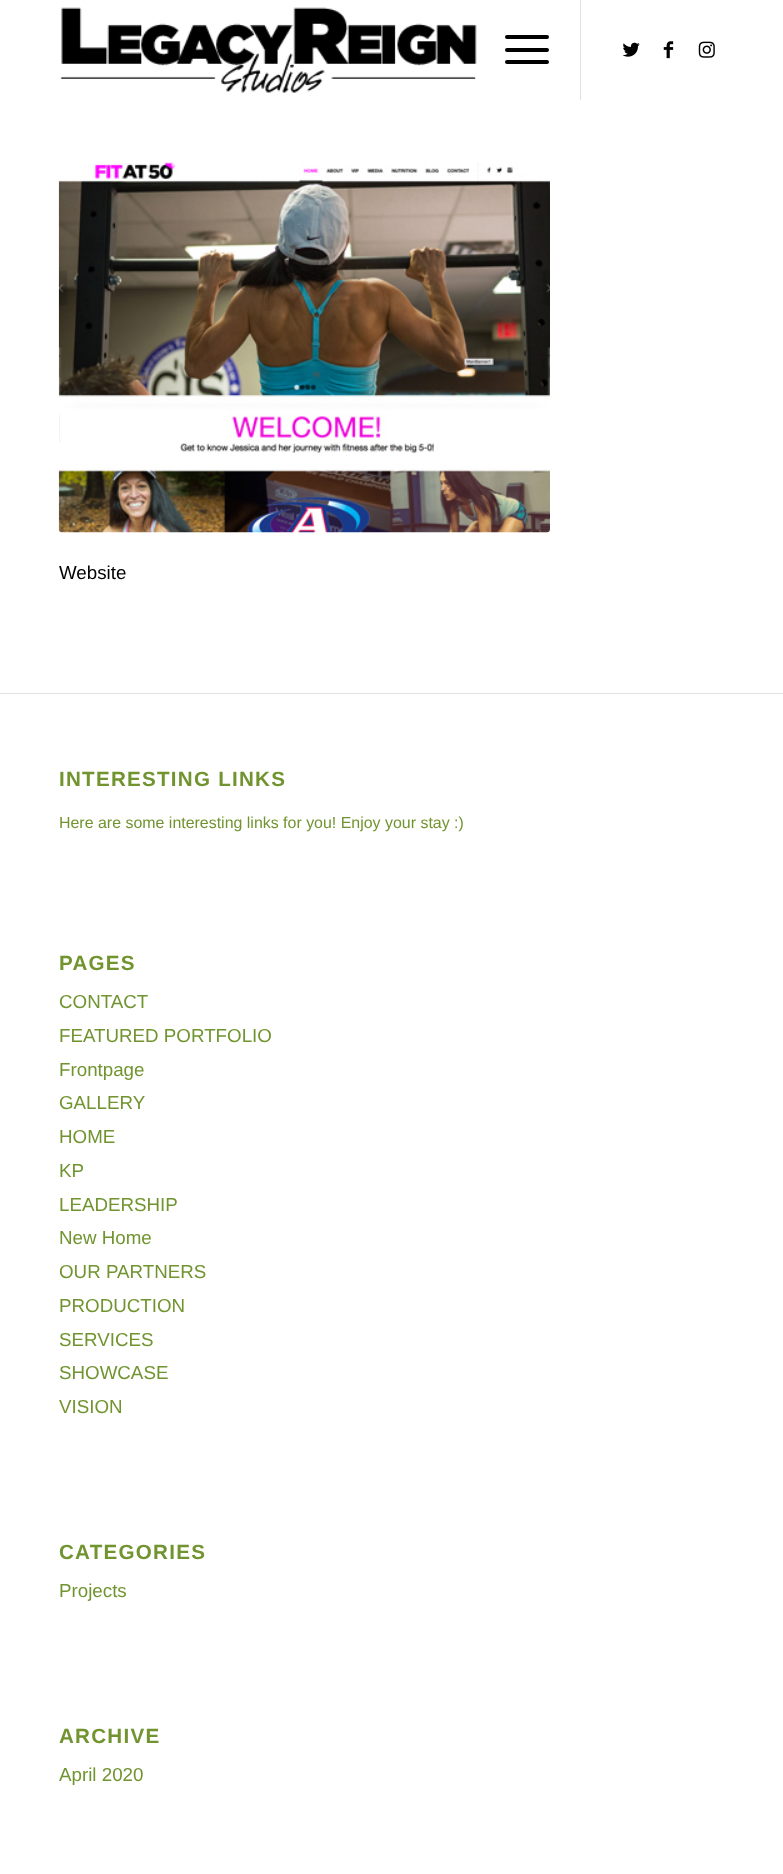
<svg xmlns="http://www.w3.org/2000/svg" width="783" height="1874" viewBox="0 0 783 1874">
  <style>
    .t1 { font: 18.75px Liberation Sans; fill: #000; }
    .t2 { font: bold 20.6px Liberation Sans; letter-spacing: 1.25px; fill: #719430; }
    .t3 { font: 15.95px Liberation Sans; fill: #719430; }
    .t4 { font: 18.75px Liberation Sans; fill: #719430; }
  </style>
  <rect width="100%" height="100%" fill="#fff"/>
  <image x="60" y="7" width="417" height="86" href="images/1.png"/>
  <rect x="580" y="0" width="1" height="100" fill="#e1e1e1"/>
  <rect x="505" y="48" width="44" height="4" rx="2" fill="#000"/>
  <rect x="505" y="35" width="44" height="4" rx="2" fill="#000"/>
  <rect x="505" y="60" width="44" height="4" rx="2" fill="#000"/>
  <image x="622" y="42" width="18" height="15" href="images/2.png"/>
  <image x="663" y="41" width="11" height="18" href="images/3.png"/>
  <image x="698" y="41" width="17" height="17" href="images/4.png"/>
  <image x="58" y="162" width="492" height="371" href="images/5.png"/>
  <text x="59" y="579" class="t1">Website</text>
  <rect x="0" y="693" width="783" height="1" fill="#e1e1e1"/>
  <text x="59" y="786" class="t2">INTERESTING LINKS</text>
  <text x="59" y="828" class="t3">Here are some interesting links for you! Enjoy your stay :)</text>
  <text x="59" y="970" class="t2">PAGES</text>
  <text x="59" y="1008" class="t4">CONTACT</text>
  <text x="59" y="1042" class="t4">FEATURED PORTFOLIO</text>
  <text x="59" y="1076" class="t4">Frontpage</text>
  <text x="59" y="1109" class="t4">GALLERY</text>
  <text x="59" y="1143" class="t4">HOME</text>
  <text x="59" y="1177" class="t4">KP</text>
  <text x="59" y="1211" class="t4">LEADERSHIP</text>
  <text x="59" y="1244" class="t4">New Home</text>
  <text x="59" y="1278" class="t4">OUR PARTNERS</text>
  <text x="59" y="1312" class="t4">PRODUCTION</text>
  <text x="59" y="1346" class="t4">SERVICES</text>
  <text x="59" y="1379" class="t4">SHOWCASE</text>
  <text x="59" y="1413" class="t4">VISION</text>
  <text x="59" y="1559" class="t2">CATEGORIES</text>
  <text x="59" y="1597" class="t4">Projects</text>
  <text x="59" y="1743" class="t2">ARCHIVE</text>
  <text x="59" y="1781" class="t4">April 2020</text>
</svg>
